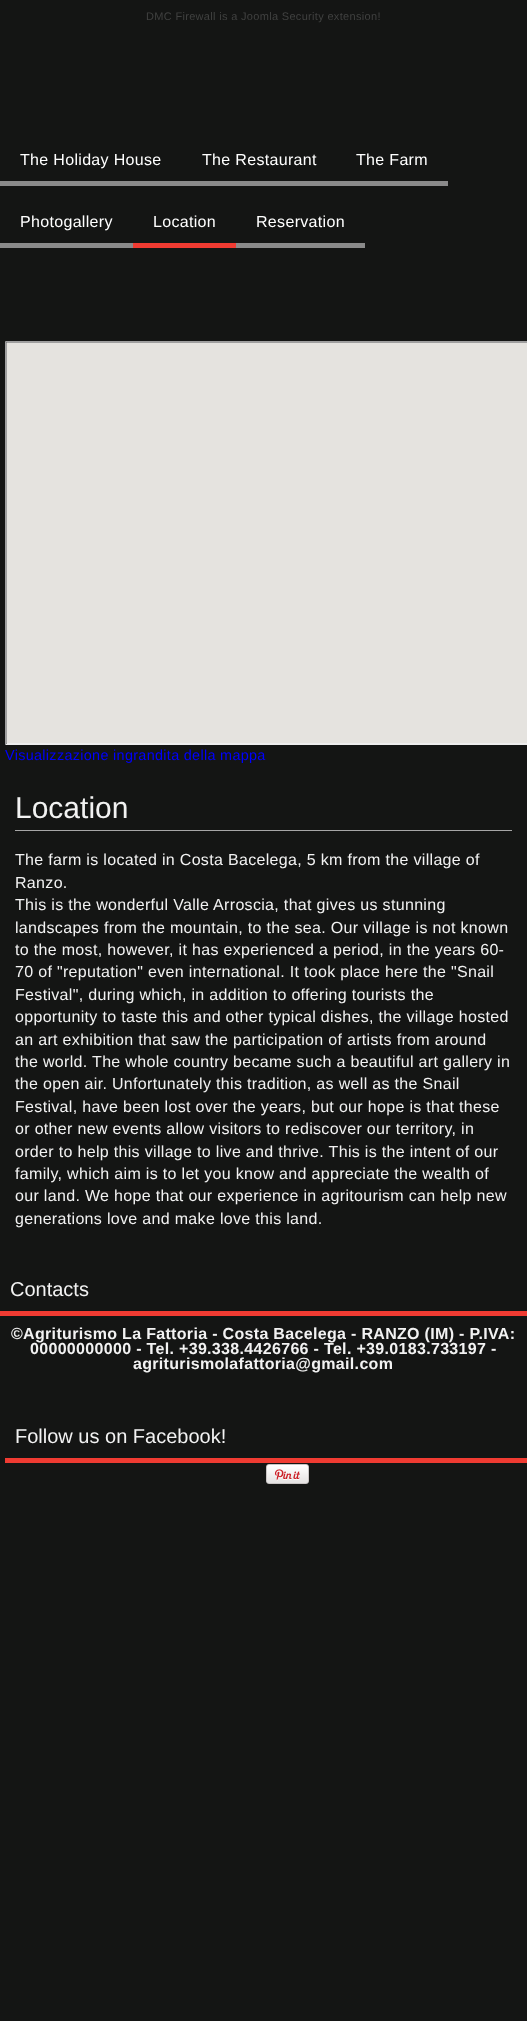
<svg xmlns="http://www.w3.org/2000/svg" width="527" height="2021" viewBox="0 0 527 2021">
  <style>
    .t1 { font: 11px Liberation Sans; letter-spacing: 0.32px; fill: #404140; }
    .t2 { font: 16px Liberation Sans; letter-spacing: 0.32px; fill: #fff; }
    .t3 { font: 14.4px Liberation Sans; letter-spacing: 0.32px; fill: #00f; }
    .t4 { font: 30px Liberation Sans; fill: #f2f2f2; }
    .t5 { font: 16px Liberation Sans; letter-spacing: 0.32px; fill: #f2f2f2; }
    .t6 { font: 20px Liberation Sans; fill: #f2f2f2; }
    .t7 { font: bold 16px Liberation Sans; letter-spacing: 0.32px; fill: #f2f2f2; }
  </style>
  <rect width="100%" height="100%" fill="#141514"/>
  <text x="146" y="20" class="t1">DMC Firewall is a Joomla Security extension!</text>
  <rect x="0" y="181" width="448" height="5" fill="#8a8a8a"/>
  <text x="20" y="165" class="t2">The Holiday House</text>
  <text x="202" y="165" class="t2">The Restaurant</text>
  <text x="356" y="165" class="t2">The Farm</text>
  <rect x="0" y="243" width="133" height="5" fill="#8a8a8a"/>
  <text x="20" y="227" class="t2">Photogallery</text>
  <rect x="133" y="243" width="103" height="5" fill="#f03b32"/>
  <text x="153" y="227" class="t2">Location</text>
  <rect x="236" y="243" width="129" height="5" fill="#8a8a8a"/>
  <text x="256" y="227" class="t2">Reservation</text>
  <path d="M5 341H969L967 343H7Z" fill="#9f9f9f"/>
  <path d="M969 745H5L7 743H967Z" fill="#eee"/>
  <path d="M5 745V341L7 343V743Z" fill="#9f9f9f"/>
  <rect x="7" y="343" width="520" height="400" fill="#e5e3df"/>
  <text x="5" y="760" class="t3">Visualizzazione ingrandita della mappa</text>
  <rect x="15" y="830" width="497" height="1" fill="#a6a6a6"/>
  <text x="15" y="818" class="t4">Location</text>
  <text x="15" y="865" class="t5">The farm is located in Costa Bacelega, 5 km from the village of</text>
  <text x="15" y="888" class="t5">Ranzo.</text>
  <text x="15" y="910" class="t5">This is the wonderful Valle Arroscia, that gives us stunning</text>
  <text x="15" y="933" class="t5">landscapes from the mountain, to the sea. Our village is not known</text>
  <text x="15" y="955" class="t5">to the most, however, it has experienced a period, in the years 60-</text>
  <text x="15" y="977" class="t5">70 of "reputation" even international. It took place here the "Snail</text>
  <text x="15" y="1000" class="t5">Festival", during which, in addition to offering tourists the</text>
  <text x="15" y="1022" class="t5">opportunity to taste this and other typical dishes, the village hosted</text>
  <text x="15" y="1045" class="t5">an art exhibition that saw the participation of artists from around</text>
  <text x="15" y="1067" class="t5">the world. The whole country became such a beautiful art gallery in</text>
  <text x="15" y="1089" class="t5">the open air. Unfortunately this tradition, as well as the Snail</text>
  <text x="15" y="1112" class="t5">Festival, have been lost over the years, but our hope is that these</text>
  <text x="15" y="1134" class="t5">or other new events allow visitors to rediscover our territory, in</text>
  <text x="15" y="1157" class="t5">order to help this village to live and thrive. This is the intent of our</text>
  <text x="15" y="1179" class="t5">family, which aim is to let you know and appreciate the wealth of</text>
  <text x="15" y="1201" class="t5">our land. We hope that our experience in agritourism can help new</text>
  <text x="15" y="1224" class="t5">generations love and make love this land.</text>
  <text x="10" y="1296" class="t6">Contacts</text>
  <rect x="0" y="1311" width="527" height="5" fill="#f03b32"/>
  <text x="11" y="1339" class="t7">©Agriturismo La Fattoria - Costa Bacelega - RANZO (IM) - P.IVA:</text>
  <text x="30" y="1354" class="t7">00000000000 - Tel. +39.338.4426766 - Tel. +39.0183.733197 -</text>
  <text x="133" y="1369" class="t7">agriturismolafattoria@gmail.com</text>
  <text x="15" y="1443" class="t6">Follow us on Facebook!</text>
  <rect x="5" y="1458" width="522" height="5" fill="#f03b32"/>
  <image x="266" y="1464" width="43" height="20" href="images/1.png"/>
</svg>
